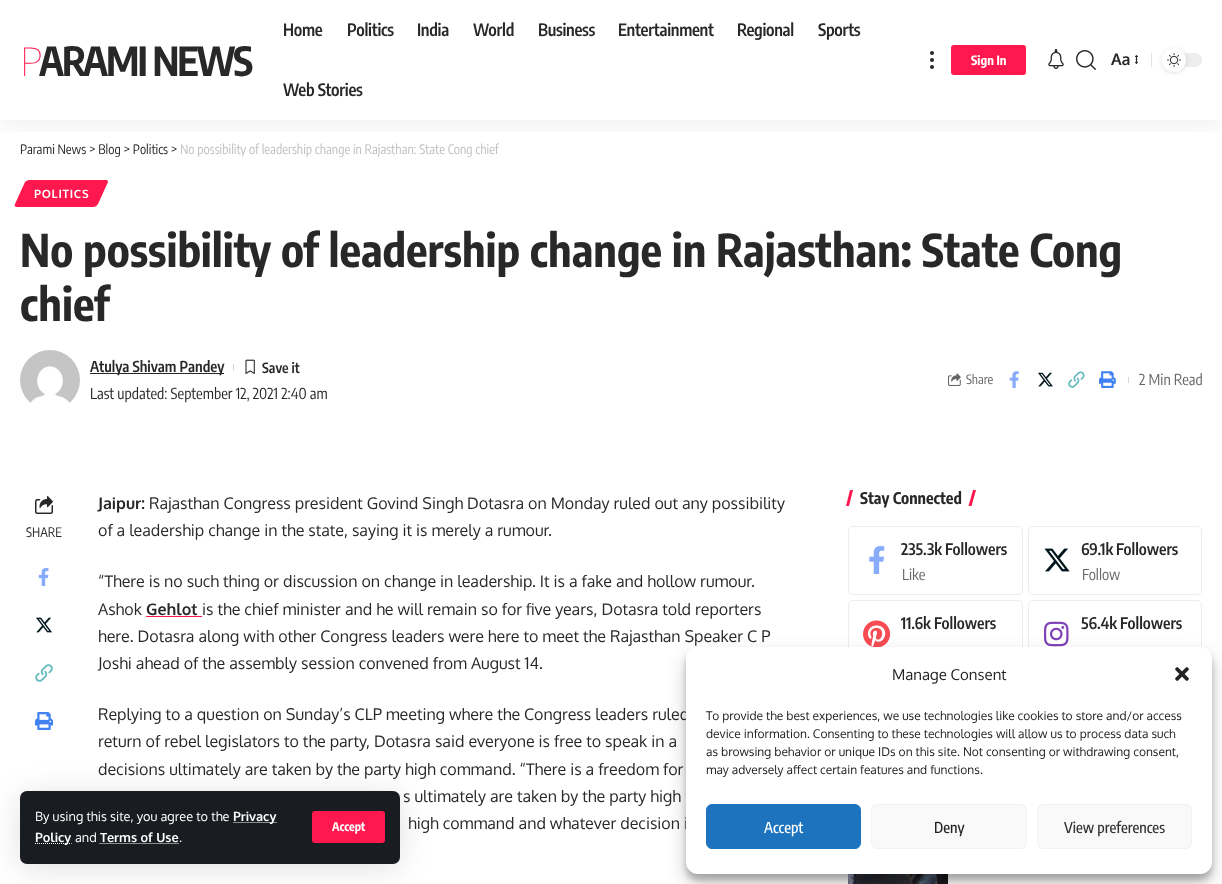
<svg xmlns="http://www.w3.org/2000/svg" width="1222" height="884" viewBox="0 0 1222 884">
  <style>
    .t1 { font: 100 40px Noto Sans; letter-spacing: -2px; fill: #ff184e; }
    .t2 { font: bold 40px Encode Sans Condensed; letter-spacing: -2px; fill: #282828; }
    .t3 { font: 600 17px Encode Sans Condensed; letter-spacing: -0.3px; fill: #282828; }
    .t4 { font: bold 12.75px Encode Sans Condensed; fill: #fff; }
    .t5 { font: bold 16px Oxygen; fill: #282828; }
    .t6 { font: 12.75px Oxygen; fill: #fff; }
    .t7 { font: bold 12.75px Oxygen; fill: #fff; }
    .t8 { font: bold 12px Encode Sans Condensed; fill: #fff; }
    .t9 { font: 13px Encode Sans Condensed; fill: #282828; }
    .t10 { font: 13px Encode Sans Condensed; fill: #c0c0c0; }
    .t11 { font: bold 11.5px Oxygen; letter-spacing: 0.75px; fill: #fff; }
    .t12 { font: bold 45px Encode Sans Condensed; fill: #282828; }
    .t13 { font: 600 15px Encode Sans Condensed; fill: #282828; }
    .t14 { font: 600 14px Encode Sans Condensed; fill: #282828; }
    .t15 { font: 15px Encode Sans Condensed; fill: #282828; }
    .t16 { font: 12.75px Encode Sans Condensed; fill: #666; }
    .t17 { font: 15px Encode Sans Condensed; fill: #666; }
    .t18 { font: 16px Oxygen; fill: #282828; }
    .t19 { font: bold 16px Encode Sans Condensed; fill: #282828; }
    .t20 { font: 600 16px Encode Sans Condensed; fill: #282828; }
    .t21 { font: 15px Oxygen; fill: #222; }
    .t22 { font: 12px Oxygen; fill: #222; }
    .t23 { font: 500 15px Encode Sans Condensed; fill: #fff; }
    .t24 { font: 500 15px Encode Sans Condensed; fill: #222; }
    .t25 { font: 500 15px Encode Sans Condensed; fill: #333; }
  </style>
  <defs>
    <clipPath id="clip1"><rect x="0" y="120" width="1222" height="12"/></clipPath>
  </defs>
  <rect width="100%" height="100%" fill="#fff"/>
  <g clip-path="url(#clip1)">
    <rect x="0" y="4" width="1222" height="120" fill="#00000012" filter="blur(15px)"/>
  </g>
  <text x="20" y="76" class="t1">P</text>
  <text x="39" y="76" class="t2">ARAMI NEWS</text>
  <text x="283" y="36" class="t3">Home</text>
  <text x="347" y="36" class="t3">Politics</text>
  <text x="417" y="36" class="t3">India</text>
  <text x="473" y="36" class="t3">World</text>
  <text x="538" y="36" class="t3">Business</text>
  <text x="618" y="36" class="t3">Entertainment</text>
  <text x="737" y="36" class="t3">Regional</text>
  <text x="818" y="36" class="t3">Sports</text>
  <text x="283" y="96" class="t3">Web Stories</text>
  <circle cx="932" cy="53" r="2" fill="#282828"/>
  <circle cx="932" cy="60" r="2" fill="#282828"/>
  <circle cx="932" cy="67" r="2" fill="#282828"/>
  <rect x="951" y="45" width="75" height="30" rx="3" fill="#ff184e"/>
  <text x="971" y="65" class="t4">Sign In</text>
  <image x="1048" y="49" width="16" height="20" href="images/1.png"/>
  <image x="1076" y="50" width="20" height="20" href="images/2.png"/>
  <text x="1111" y="65" class="t5">Aa</text>
  <image x="1134" y="55" width="5" height="9" href="images/3.png"/>
  <rect x="1151" y="53" width="1" height="14" fill="#e4e4e4"/>
  <rect x="1162" y="53" width="40" height="14" rx="7" fill="#ededed"/>
  <rect x="1162" y="49" width="24" height="24" rx="12" fill="#0000001f" filter="blur(2px)"/>
  <circle cx="1174" cy="60" r="12" fill="#fff"/>
  <image x="1167" y="53" width="14" height="14" href="images/4.png"/>
  <rect x="20" y="795" width="380" height="73" rx="7" fill="#0000001f" filter="blur(15px)"/>
  <rect x="20" y="791" width="380" height="73" rx="7" fill="#191c20"/>
  <text x="35" y="821" class="t6">By using this site, you agree to the</text>
  <path d="M233.5 822.5H277" fill="none" stroke="#fff" stroke-dasharray="1 1"/>
  <text x="233" y="821" class="t7">Privacy</text>
  <path d="M35 843.5H71.5" fill="none" stroke="#fff" stroke-dasharray="1 1"/>
  <text x="35" y="842" class="t7">Policy</text>
  <text x="75" y="842" class="t6">and</text>
  <text x="100" y="842" class="t7">Terms of Use</text>
  <path d="M99.5 843.5H178.5" fill="none" stroke="#fff" stroke-dasharray="1 1"/>
  <text x="179" y="842" class="t6">.</text>
  <rect x="312" y="811" width="73" height="32" rx="3" fill="#ff184e"/>
  <text x="332" y="831" class="t8">Accept</text>
  <text x="20" y="154" class="t9">Parami News &gt; Blog &gt; Politics &gt;</text>
  <text x="180" y="154" class="t10">No possibility of leadership change in Rajasthan: State Cong chief</text>
  <path d="M29 180H106C108 180 108 181 108 182L98 204C97 206 95 207 93 207H17C15 207 14 206 15 204L25 182C26 181 28 180 29 180Z" fill="#ff184e"/>
  <text x="34" y="198" class="t11">POLITICS</text>
  <text x="20" y="267" class="t12">No possibility of leadership change in Rajasthan: State Cong</text>
  <text x="20" y="321" class="t12">chief</text>
  <image x="20" y="350" width="60" height="53" href="images/5.png"/>
  <rect x="90" y="373" width="134" height="1" fill="#282828"/>
  <text x="90" y="372" class="t13">Atulya Shivam Pandey</text>
  <rect x="233" y="364" width="1" height="6" fill="#d1d1d1"/>
  <image x="245" y="359" width="10" height="15" href="images/6.png"/>
  <text x="262" y="373" class="t14">Save it</text>
  <text x="90" y="399" class="t15">Last updated: September 12, 2021 2:40 am</text>
  <image x="948" y="373" width="13" height="13" href="images/7.png"/>
  <text x="966" y="384" class="t16">Share</text>
  <image x="1009" y="371" width="10" height="17" href="images/8.png"/>
  <image x="1038" y="372" width="15" height="15" href="images/9.png"/>
  <image x="1068" y="371" width="17" height="17" href="images/10.png"/>
  <image x="1099" y="371" width="17" height="17" href="images/11.png"/>
  <rect x="1128" y="377" width="1" height="6" fill="#d9d9d9"/>
  <text x="1139" y="385" class="t17">2 Min Read</text>
  <image x="35" y="496" width="18" height="18" href="images/12.png"/>
  <text x="26" y="537" class="t9">SHARE</text>
  <image x="38" y="568" width="11" height="18" href="images/13.png"/>
  <image x="36" y="617" width="16" height="16" href="images/14.png"/>
  <image x="35" y="664" width="18" height="18" href="images/15.png"/>
  <image x="35" y="712" width="18" height="18" href="images/16.png"/>
  <text x="98" y="509" class="t5">Jaipur:</text>
  <text x="149" y="509" class="t18">Rajasthan Congress president Govind Singh Dotasra on Monday ruled out any possibility</text>
  <text x="98" y="536" class="t18">of a leadership change in the state, saying it is merely a rumour.</text>
  <text x="98" y="587" class="t18">“There is no such thing or discussion on change in leadership. It is a fake and hollow rumour.</text>
  <text x="98" y="615" class="t18">Ashok</text>
  <text x="146" y="615" class="t5">Gehlot</text>
  <rect x="146" y="616" width="56" height="1" fill="#ff184e"/>
  <text x="202" y="615" class="t18">is the chief minister and he will remain so for five years, Dotasra told reporters</text>
  <text x="98" y="642" class="t18">here. Dotasra along with other Congress leaders were here to meet the Rajasthan Speaker C P</text>
  <text x="98" y="669" class="t18">Joshi ahead of the assembly session convened from August 14.</text>
  <text x="98" y="720" class="t18">Replying to a question on Sunday’s CLP meeting where the Congress leaders ruled</text>
  <text x="98" y="747" class="t18">return of rebel legislators to the party, Dotasra said everyone is free to speak in a</text>
  <text x="98" y="775" class="t18">decisions ultimately are taken by the party high command. “There is a freedom for</text>
  <text x="403" y="802" class="t18">s ultimately are taken by the party high</text>
  <text x="408" y="829" class="t18">high command and whatever decision i</text>
  <path d="M973 490H976L971.5 506H968.5Z" fill="#ff184e"/>
  <path d="M850 490H853L849 506H846Z" fill="#ff184e"/>
  <text x="860" y="504" class="t19">Stay Connected</text>
  <rect x="848.5" y="526.5" width="174" height="68" rx="4.5" fill="none" stroke="#ededed"/>
  <image x="869" y="546" width="16" height="28" href="images/17.png"/>
  <text x="901" y="555" class="t20">235.3k</text>
  <text x="945" y="555" class="t20">Followers</text>
  <text x="902" y="580" class="t17">Like</text>
  <rect x="1028.5" y="526.5" width="173" height="68" rx="4.5" fill="none" stroke="#ededed"/>
  <image x="1044" y="548" width="26" height="24" href="images/18.png"/>
  <text x="1081" y="555" class="t20">69.1k</text>
  <text x="1116" y="555" class="t20">Followers</text>
  <text x="1082" y="580" class="t17">Follow</text>
  <rect x="848.5" y="600.5" width="174" height="67" rx="4.5" fill="none" stroke="#ededed"/>
  <image x="863" y="620" width="28" height="27" href="images/19.png"/>
  <text x="901" y="629" class="t20">11.6k</text>
  <text x="934" y="629" class="t20">Followers</text>
  <rect x="1028.5" y="600.5" width="173" height="67" rx="4.5" fill="none" stroke="#ededed"/>
  <image x="1044" y="621" width="25" height="26" href="images/20.png"/>
  <text x="1081" y="629" class="t20">56.4k</text>
  <text x="1120" y="629" class="t20">Followers</text>
  <image x="848" y="874" width="100" height="10" href="images/21.png"/>
  <rect x="686" y="653" width="526" height="227" rx="12" fill="#0000003b" filter="blur(3px)"/>
  <rect x="686" y="657" width="526" height="227" rx="12" fill="#00000030" filter="blur(10px)"/>
  <rect x="686" y="647" width="526" height="227" rx="12" fill="#fff"/>
  <text x="892" y="680" class="t21">Manage Consent</text>
  <image x="1175" y="667" width="14" height="14" href="images/22.png"/>
  <text x="706" y="720" class="t22">To provide the best experiences, we use technologies like cookies to store and/or access</text>
  <text x="706" y="738" class="t22">device information. Consenting to these technologies will allow us to process data such</text>
  <text x="706" y="756" class="t22">as browsing behavior or unique IDs on this site. Not consenting or withdrawing consent,</text>
  <text x="706" y="774" class="t22">may adversely affect certain features and functions.</text>
  <rect x="706.5" y="804.5" width="154" height="44" rx="5.5" fill="#1e73be" stroke="#1e73be"/>
  <text x="764" y="833" class="t23">Accept</text>
  <rect x="871.5" y="804.5" width="155" height="44" rx="5.5" fill="#f9f9f9" stroke="#f2f2f2"/>
  <text x="934" y="833" class="t24">Deny</text>
  <rect x="1037.5" y="804.5" width="154" height="44" rx="5.5" fill="#f9f9f9" stroke="#f2f2f2"/>
  <text x="1064" y="833" class="t25">View preferences</text>
</svg>
